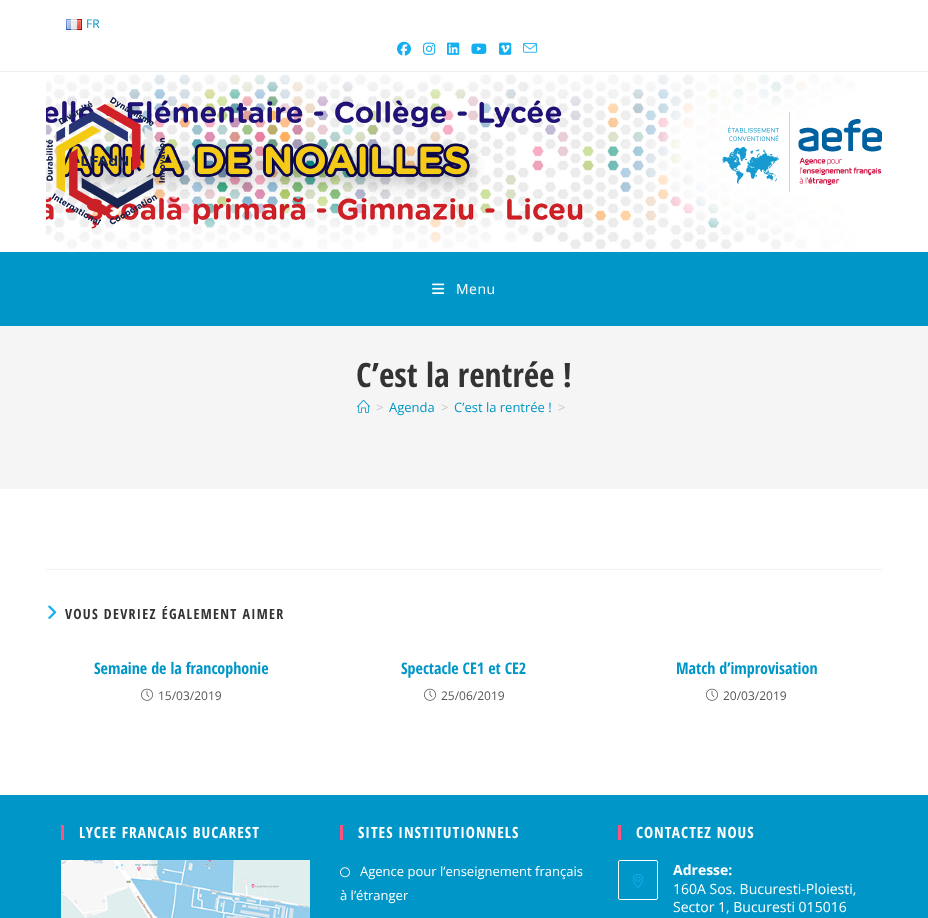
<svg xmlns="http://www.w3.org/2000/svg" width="928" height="918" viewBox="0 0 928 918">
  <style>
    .t1 { font: 12px Open Sans; fill: #0096c8; }
    .t2 { font: 14px Open Sans; letter-spacing: 0.5px; fill: #fff; }
    .t3 { font: bold 33.5px Open Sans Condensed; fill: #333; }
    .t4 { font: 13px Open Sans; fill: #c6c6c6; }
    .t5 { font: 13px Open Sans; fill: #0096c8; }
    .t6 { font: bold 14px Open Sans Condensed; letter-spacing: 1.3px; fill: #333; }
    .t7 { font: bold 16px Open Sans Condensed; fill: #0096c8; }
    .t8 { font: 12px Open Sans; fill: #555; }
    .t9 { font: bold 15.4px Open Sans Condensed; letter-spacing: 1px; fill: #fff; }
    .t10 { font: 13px Open Sans; fill: #fff; }
    .t11 { font: bold 14px Open Sans; fill: #fff; }
    .t12 { font: 14px Open Sans; fill: #fff; }
  </style>
  <rect width="100%" height="100%" fill="#fff"/>
  <rect x="0" y="71" width="928" height="1" fill="#efefef"/>
  <image x="66" y="19" width="16" height="11" href="images/1.png"/>
  <text x="86" y="28" class="t1">FR</text>
  <image x="397" y="41" width="14" height="15" href="images/2.png"/>
  <image x="423" y="42" width="13" height="13" href="images/3.png"/>
  <image x="447" y="42" width="13" height="13" href="images/4.png"/>
  <image x="471" y="43" width="16" height="11" href="images/5.png"/>
  <image x="499" y="42" width="13" height="13" href="images/6.png"/>
  <image x="523" y="43" width="14" height="10" href="images/7.png"/>
  <image x="46" y="74" width="809" height="175" href="images/8.png"/>
  <image x="46" y="97" width="119" height="128" href="images/9.png"/>
  <image x="722" y="112" width="160" height="80" href="images/10.png"/>
  <rect x="0" y="252" width="928" height="74" fill="#0096c8"/>
  <image x="432" y="283" width="13" height="11" href="images/11.png"/>
  <text x="456" y="294" class="t2">Menu</text>
  <rect x="0" y="326" width="928" height="163" fill="#f5f5f5"/>
  <text x="356" y="387" class="t3">C’est la rentrée !</text>
  <image x="357" y="399" width="13" height="14" href="images/12.png"/>
  <text x="376" y="412" class="t4">&gt;</text>
  <text x="389" y="412" class="t5">Agenda</text>
  <text x="441" y="412" class="t4">&gt;</text>
  <text x="454" y="412" class="t5">C’est la rentrée !</text>
  <text x="558" y="412" class="t4">&gt;</text>
  <rect x="46" y="569" width="836" height="1" fill="#f1f1f1"/>
  <image x="48" y="605" width="9" height="14" href="images/13.png"/>
  <text x="65" y="619" class="t6">VOUS DEVRIEZ ÉGALEMENT AIMER</text>
  <text x="94" y="674" class="t7">Semaine de la francophonie</text>
  <image x="141" y="688" width="12" height="13" href="images/14.png"/>
  <text x="158" y="700" class="t8">15/03/2019</text>
  <text x="401" y="674" class="t7">Spectacle CE1 et CE2</text>
  <image x="424" y="688" width="12" height="13" href="images/14.png"/>
  <text x="441" y="700" class="t8">25/06/2019</text>
  <text x="676" y="674" class="t7">Match d’improvisation</text>
  <image x="706" y="688" width="12" height="13" href="images/14.png"/>
  <text x="723" y="700" class="t8">20/03/2019</text>
  <rect x="0" y="795" width="928" height="123" fill="#0096c8"/>
  <rect x="61" y="825" width="3" height="15" fill="#ff527f"/>
  <text x="79" y="838" class="t9">LYCEE FRANCAIS BUCAREST</text>
  <image x="61" y="860" width="249" height="58" href="images/15.png"/>
  <rect x="340" y="825" width="3" height="15" fill="#ff527f"/>
  <text x="358" y="838" class="t9">SITES INSTITUTIONNELS</text>
  <image x="340" y="867" width="10" height="11" href="images/16.png"/>
  <text x="360" y="876" class="t10">Agence pour l’enseignement français</text>
  <text x="340" y="900" class="t10">à l’étranger</text>
  <rect x="618" y="825" width="3" height="15" fill="#ff527f"/>
  <text x="636" y="838" class="t9">CONTACTEZ NOUS</text>
  <rect x="618.5" y="860.5" width="39" height="39" rx="1.5" fill="none" stroke="#fff"/>
  <image x="632" y="874" width="12" height="14" href="images/17.png"/>
  <text x="673" y="875" class="t11">Adresse:</text>
  <text x="673" y="894" class="t12">160A Sos. Bucuresti-Ploiesti,</text>
  <text x="673" y="912" class="t12">Sector 1, Bucuresti 015016</text>
</svg>
